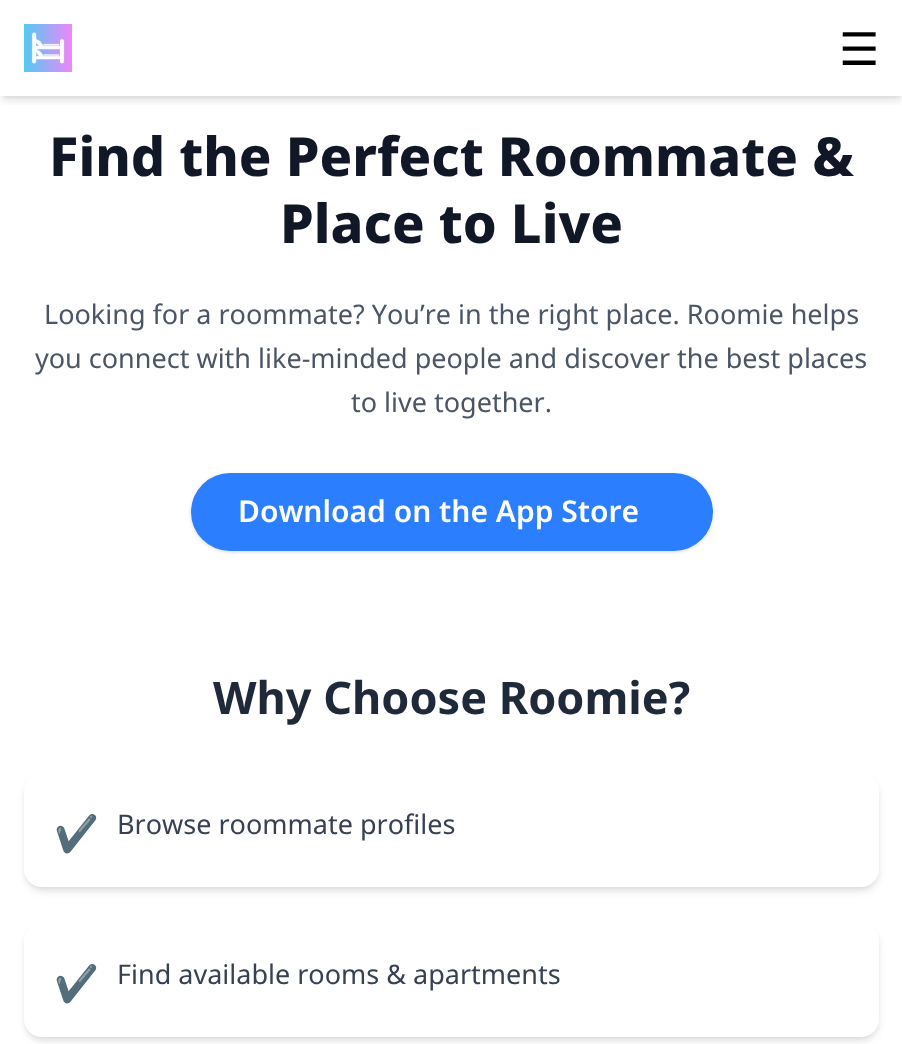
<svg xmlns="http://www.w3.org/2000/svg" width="902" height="1044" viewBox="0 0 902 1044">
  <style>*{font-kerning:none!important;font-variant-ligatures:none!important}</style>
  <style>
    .t1 { font: 45px DejaVu Sans; fill: #000; }
    .t2 { font: 800 54px Noto Sans; fill: #101828; }
    .t3 { font: 27px Noto Sans; fill: #4a5565; }
    .t4 { font: 600 30px Noto Sans; fill: #fff; }
    .t5 { font: bold 45px Noto Sans; fill: #1e2939; }
    .t6 { font: bold 36px Noto Color Emoji; fill: #155dfc; }
    .t7 { font: 27px Noto Sans; fill: #364153; }
  </style>
  <defs>
    <clipPath id="clip1"><rect x="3" y="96" width="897" height="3"/></clipPath>
    <clipPath id="clip2"><rect x="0" y="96" width="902" height="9"/></clipPath>
  </defs>
  <rect width="100%" height="100%" fill="#fff"/>
  <g clip-path="url(#clip1)">
    <rect x="3" y="6" width="897" height="90" fill="#0000001a" filter="blur(3px)"/>
  </g>
  <g clip-path="url(#clip2)">
    <rect x="2" y="8" width="900" height="93" fill="#0000001a" filter="blur(4.5px)"/>
  </g>
  <image x="24" y="24" width="48" height="48" href="images/1.png"/>
  <text x="839" y="65" class="t1">☰</text>
  <text x="49" y="176" class="t2">Find the Perfect Roommate &amp;</text>
  <text x="280" y="243" class="t2">Place to Live</text>
  <text x="44" y="324" class="t3">Looking for a roommate? You’re in the right place. Roomie helps</text>
  <text x="35" y="368" class="t3">you connect with like-minded people and discover the best places</text>
  <text x="351" y="412" class="t3">to live together.</text>
  <rect x="192" y="476" width="519" height="75" rx="37.5" fill="#0000001a" filter="blur(1.5px)"/>
  <rect x="191" y="474" width="522" height="78" rx="39" fill="#0000001a" filter="blur(2px)"/>
  <rect x="191" y="473" width="522" height="78" rx="39" fill="#2b7fff"/>
  <text x="238" y="522" class="t4"> Download on the App Store</text>
  <text x="213" y="714" class="t5">Why Choose Roomie?</text>
  <rect x="27" y="779" width="849" height="108" rx="15" fill="#0000001a" filter="blur(3px)"/>
  <rect x="26" y="780" width="852" height="111" rx="17" fill="#0000001a" filter="blur(4.5px)"/>
  <rect x="24" y="773" width="855" height="114" rx="18" fill="#fff"/>
  <text x="54" y="846" class="t6">✔</text>
  <text x="117" y="834" class="t7">Browse roommate profiles</text>
  <rect x="27" y="929" width="849" height="108" rx="15" fill="#0000001a" filter="blur(3px)"/>
  <rect x="26" y="930" width="852" height="111" rx="17" fill="#0000001a" filter="blur(4.5px)"/>
  <rect x="24" y="923" width="855" height="114" rx="18" fill="#fff"/>
  <text x="54" y="996" class="t6">✔</text>
  <text x="117" y="984" class="t7">Find available rooms &amp; apartments</text>
</svg>
